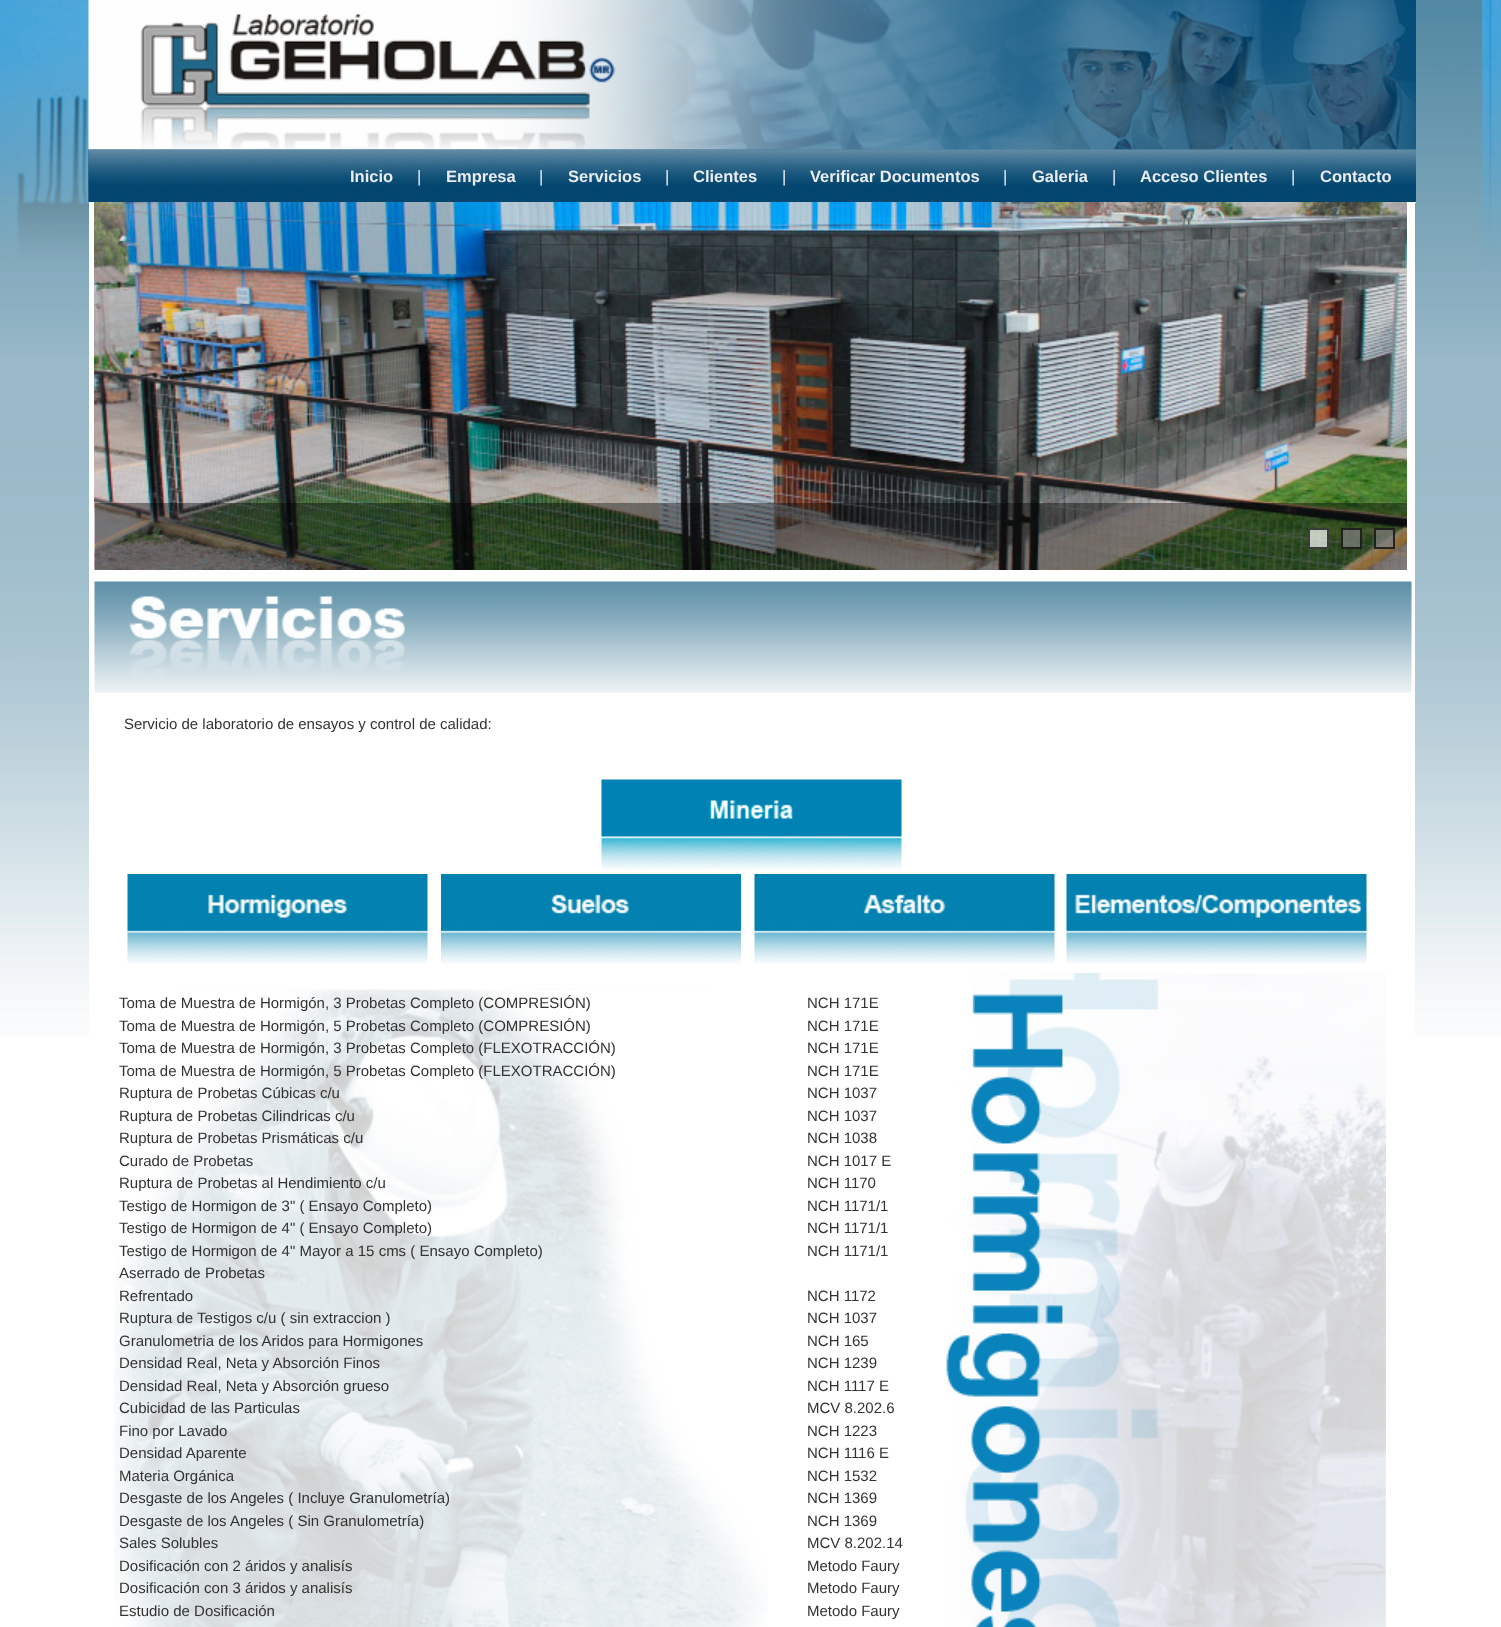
<svg xmlns="http://www.w3.org/2000/svg" width="1501" height="1627" viewBox="0 0 1501 1627">
  <style>
    .t1 { font: bold 16.5px Liberation Sans; fill: #e9edf2; }
    .t2 { font: 16.5px Liberation Sans; fill: #e9edf2; }
    .t3 { font: 15px Liberation Sans; fill: #333; }
  </style>
  <rect width="100%" height="100%" fill="#fff"/>
  <image x="0" y="0" width="1501" height="1037" href="images/1.png"/>
  <image x="88" y="149" width="1328" height="53" href="images/3.png"/>
  <image x="88" y="0" width="1328" height="150" href="images/2.png"/>
  <rect x="89" y="202" width="1327" height="1" fill="#fff"/>
  <image x="88" y="149" width="1328" height="53" href="images/4.png"/>
  <text x="350" y="182" class="t1">Inicio</text>
  <text x="417" y="182" class="t2">|</text>
  <text x="446" y="182" class="t1">Empresa</text>
  <text x="539" y="182" class="t2">|</text>
  <text x="568" y="182" class="t1">Servicios</text>
  <text x="665" y="182" class="t2">|</text>
  <text x="693" y="182" class="t1">Clientes</text>
  <text x="782" y="182" class="t2">|</text>
  <text x="810" y="182" class="t1">Verificar Documentos</text>
  <text x="1003" y="182" class="t2">|</text>
  <text x="1032" y="182" class="t1">Galeria</text>
  <text x="1112" y="182" class="t2">|</text>
  <text x="1140" y="182" class="t1">Acceso Clientes</text>
  <text x="1291" y="182" class="t2">|</text>
  <text x="1320" y="182" class="t1">Contacto</text>
  <rect x="89" y="203" width="1326" height="834" fill="#fff"/>
  <image x="94" y="202" width="1313" height="368" href="images/5.png"/>
  <rect x="95" y="503" width="1312" height="67" fill="#00000066"/>
  <rect x="1308" y="528" width="21" height="21" fill="#ffffffb3"/>
  <rect x="1309" y="529" width="19" height="19" fill="none" stroke="#000000b3" stroke-width="2"/>
  <rect x="1341" y="528" width="21" height="21" fill="#808080b3"/>
  <rect x="1342" y="529" width="19" height="19" fill="none" stroke="#000000b3" stroke-width="2"/>
  <rect x="1374" y="528" width="21" height="21" fill="#808080b3"/>
  <rect x="1375" y="529" width="19" height="19" fill="none" stroke="#000000b3" stroke-width="2"/>
  <image x="94" y="581" width="1318" height="112" href="images/6.png"/>
  <text x="124" y="729" class="t3">Servicio de laboratorio de ensayos y control de calidad:</text>
  <image x="601" y="779" width="301" height="91" href="images/7.png"/>
  <image x="127" y="874" width="301" height="90" href="images/8.png"/>
  <image x="441" y="874" width="300" height="90" href="images/9.png"/>
  <image x="754" y="874" width="301" height="90" href="images/10.png"/>
  <image x="1066" y="874" width="301" height="90" href="images/11.png"/>
  <image x="114" y="989" width="654" height="638" href="images/12.png"/>
  <text x="119" y="1008" class="t3">Toma de Muestra de Hormigón, 3 Probetas Completo (COMPRESIÓN)</text>
  <text x="119" y="1031" class="t3">Toma de Muestra de Hormigón, 5 Probetas Completo (COMPRESIÓN)</text>
  <text x="119" y="1053" class="t3">Toma de Muestra de Hormigón, 3 Probetas Completo (FLEXOTRACCIÓN)</text>
  <text x="119" y="1076" class="t3">Toma de Muestra de Hormigón, 5 Probetas Completo (FLEXOTRACCIÓN)</text>
  <text x="119" y="1098" class="t3">Ruptura de Probetas Cúbicas c/u</text>
  <text x="119" y="1121" class="t3">Ruptura de Probetas Cilindricas c/u</text>
  <text x="119" y="1143" class="t3">Ruptura de Probetas Prismáticas c/u</text>
  <text x="119" y="1166" class="t3">Curado de Probetas</text>
  <text x="119" y="1188" class="t3">Ruptura de Probetas al Hendimiento c/u</text>
  <text x="119" y="1211" class="t3">Testigo de Hormigon de 3" ( Ensayo Completo)</text>
  <text x="119" y="1233" class="t3">Testigo de Hormigon de 4" ( Ensayo Completo)</text>
  <text x="119" y="1256" class="t3">Testigo de Hormigon de 4" Mayor a 15 cms ( Ensayo Completo)</text>
  <text x="119" y="1278" class="t3">Aserrado de Probetas</text>
  <text x="119" y="1301" class="t3">Refrentado</text>
  <text x="119" y="1323" class="t3">Ruptura de Testigos c/u ( sin extraccion )</text>
  <text x="119" y="1346" class="t3">Granulometria de los Aridos para Hormigones</text>
  <text x="119" y="1368" class="t3">Densidad Real, Neta y Absorción Finos</text>
  <text x="119" y="1391" class="t3">Densidad Real, Neta y Absorción grueso</text>
  <text x="119" y="1413" class="t3">Cubicidad de las Particulas</text>
  <text x="119" y="1436" class="t3">Fino por Lavado</text>
  <text x="119" y="1458" class="t3">Densidad Aparente</text>
  <text x="119" y="1481" class="t3">Materia Orgánica</text>
  <text x="119" y="1503" class="t3">Desgaste de los Angeles ( Incluye Granulometría)</text>
  <text x="119" y="1526" class="t3">Desgaste de los Angeles ( Sin Granulometría)</text>
  <text x="119" y="1548" class="t3">Sales Solubles</text>
  <text x="119" y="1571" class="t3">Dosificación con 2 áridos y analisís</text>
  <text x="119" y="1593" class="t3">Dosificación con 3 áridos y analisís</text>
  <text x="119" y="1616" class="t3">Estudio de Dosificación</text>
  <text x="807" y="1008" class="t3">NCH 171E</text>
  <text x="807" y="1031" class="t3">NCH 171E</text>
  <text x="807" y="1053" class="t3">NCH 171E</text>
  <text x="807" y="1076" class="t3">NCH 171E</text>
  <text x="807" y="1098" class="t3">NCH 1037</text>
  <text x="807" y="1121" class="t3">NCH 1037</text>
  <text x="807" y="1143" class="t3">NCH 1038</text>
  <text x="807" y="1166" class="t3">NCH 1017 E</text>
  <text x="807" y="1188" class="t3">NCH 1170</text>
  <text x="807" y="1211" class="t3">NCH 1171/1</text>
  <text x="807" y="1233" class="t3">NCH 1171/1</text>
  <text x="807" y="1256" class="t3">NCH 1171/1</text>
  <text x="807" y="1301" class="t3">NCH 1172</text>
  <text x="807" y="1323" class="t3">NCH 1037</text>
  <text x="807" y="1346" class="t3">NCH 165</text>
  <text x="807" y="1368" class="t3">NCH 1239</text>
  <text x="807" y="1391" class="t3">NCH 1117 E</text>
  <text x="807" y="1413" class="t3">MCV 8.202.6</text>
  <text x="807" y="1436" class="t3">NCH 1223</text>
  <text x="807" y="1458" class="t3">NCH 1116 E</text>
  <text x="807" y="1481" class="t3">NCH 1532</text>
  <text x="807" y="1503" class="t3">NCH 1369</text>
  <text x="807" y="1526" class="t3">NCH 1369</text>
  <text x="807" y="1548" class="t3">MCV 8.202.14</text>
  <text x="807" y="1571" class="t3">Metodo Faury</text>
  <text x="807" y="1593" class="t3">Metodo Faury</text>
  <text x="807" y="1616" class="t3">Metodo Faury</text>
  <image x="946" y="973" width="440" height="654" href="images/13.png"/>
</svg>
